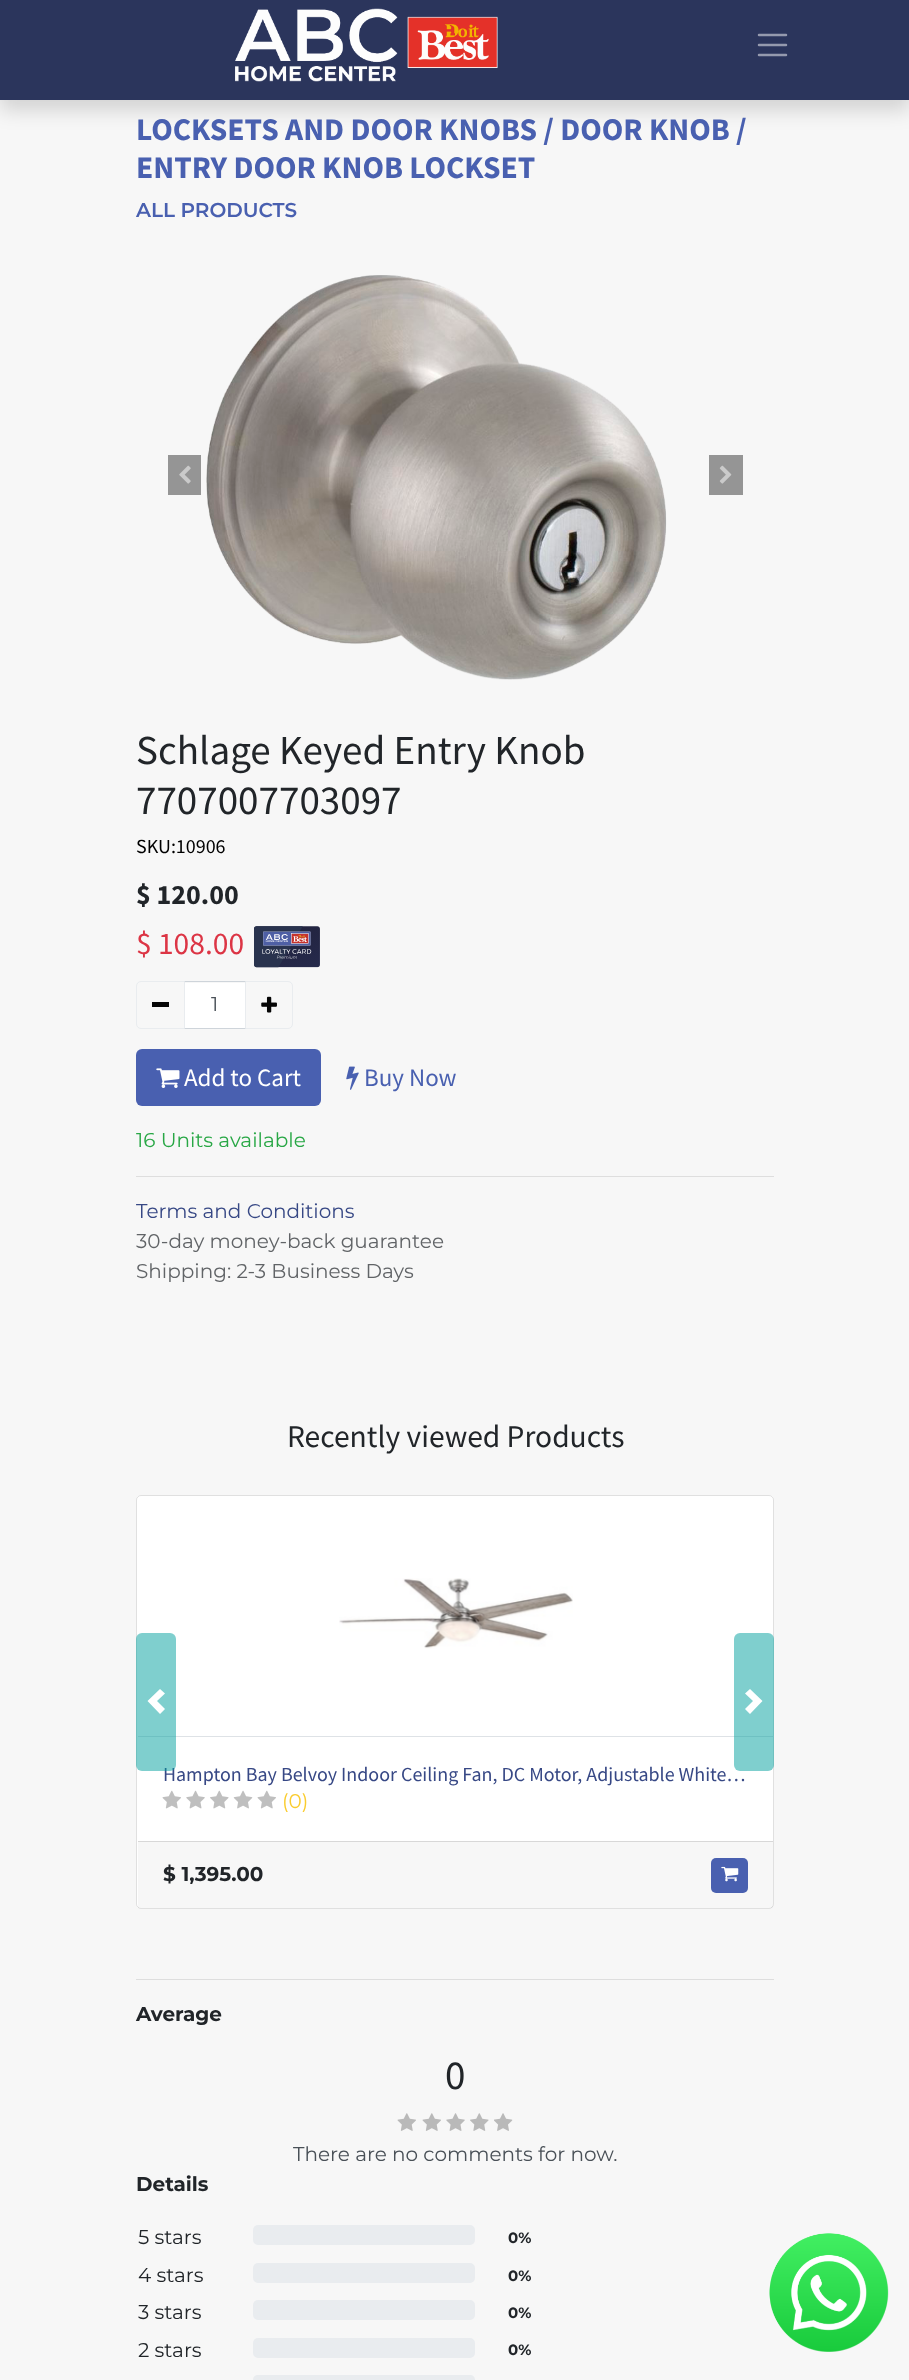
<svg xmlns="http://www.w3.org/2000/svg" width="909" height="2380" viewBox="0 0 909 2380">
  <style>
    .t1 { font: bold 31.5px Source Sans Pro; fill: #4960b0; }
    .t2 { font: 600 20px Montserrat; fill: #4960b0; }
    .t3 { font: 41.1px Source Sans Pro; fill: #212529; }
    .t4 { font: 20px Source Sans Pro; fill: #000; }
    .t5 { font: bold 28px Source Sans Pro; fill: #212529; }
    .t6 { font: 31.5px Source Sans Pro; fill: #dc3545; }
    .t7 { font: 20px Montserrat; fill: #495057; }
    .t8 { font: 25px Source Sans Pro; fill: #fff; }
    .t9 { font: 25px Source Sans Pro; fill: #4960b0; }
    .t10 { font: 20px Montserrat; fill: #28a745; }
    .t11 { font: 20px Montserrat; fill: #374885; }
    .t12 { font: 20px Montserrat; fill: #616467; }
    .t13 { font: 31.5px Source Sans Pro; fill: #212529; }
    .t14 { font: 20px Source Sans Pro; fill: #374885; }
    .t15 { font: 20px Montserrat; fill: #facc2e; }
    .t16 { font: bold 20px Montserrat; fill: #212529; }
    .t17 { font: 20px Montserrat; fill: #212529; }
    .t18 { font: bold 15px Montserrat; fill: #212529; }
  </style>
  <rect width="100%" height="100%" fill="#f7f7f7"/>
  <rect x="0" y="10" width="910" height="100" fill="#00000026" filter="blur(10px)"/>
  <rect x="0" y="0" width="909" height="100" fill="#2b355c"/>
  <image x="235" y="8" width="263" height="74" href="images/1.png"/>
  <path d="M759 35H786M759 45H786M759 55H786" fill="none" stroke="#959aae" stroke-width="2.5" stroke-linecap="round"/>
  <text x="136" y="140" class="t1">LOCKSETS AND DOOR KNOBS / DOOR KNOB /</text>
  <text x="136" y="178" class="t1">ENTRY DOOR KNOB LOCKSET</text>
  <text x="136" y="217" class="t2">ALL PRODUCTS</text>
  <rect x="168" y="455" width="33" height="40" fill="#959595"/>
  <image x="179" y="465" width="12" height="19" href="images/2.png"/>
  <image x="206" y="275" width="461" height="405" href="images/3.png"/>
  <rect x="709" y="455" width="34" height="40" fill="#959595"/>
  <image x="719" y="465" width="13" height="19" href="images/4.png"/>
  <text x="136" y="764" class="t3">Schlage Keyed Entry Knob</text>
  <text x="136" y="814" class="t3">7707007703097</text>
  <text x="136" y="853" class="t4">SKU:10906</text>
  <text x="136" y="904" class="t5">$ 120.00</text>
  <text x="136" y="954" class="t6">$ 108.00</text>
  <image x="254" y="926" width="66" height="42" href="images/5.png"/>
  <rect x="185" y="983" width="60" height="45" fill="#fff"/>
  <rect x="184.5" y="981.5" width="61" height="47" fill="none" stroke="#ced4da"/>
  <path d="M141 981.5H184.5V1028.5H141C138.5 1028.5 136.5 1026.5 136.5 1024V986C136.5 983.5 138.5 981.5 141 981.5Z" fill="none" stroke="#e9ecef"/>
  <rect x="152" y="1002" width="17" height="5" fill="#060606"/>
  <text x="211" y="1011" class="t7">1</text>
  <path d="M245.5 981.5H288C290.5 981.5 292.5 983.5 292.5 986V1024C292.5 1026.5 290.5 1028.5 288 1028.5H245.5Z" fill="none" stroke="#e9ecef"/>
  <image x="261" y="996" width="16" height="17" href="images/6.png"/>
  <rect x="136" y="1049" width="185" height="57" rx="6" fill="#4960b0"/>
  <image x="156" y="1068" width="24" height="20" href="images/7.png"/>
  <text x="184" y="1086" class="t8">Add to Cart</text>
  <image x="346" y="1066" width="13" height="24" href="images/8.png"/>
  <text x="364" y="1086" class="t9">Buy Now</text>
  <text x="136" y="1147" class="t10">16 Units available</text>
  <rect x="136" y="1176" width="638" height="1" fill="#dedede"/>
  <text x="136" y="1218" class="t11">Terms and Conditions</text>
  <text x="136" y="1248" class="t12">30-day money-back guarantee</text>
  <text x="136" y="1278" class="t12">Shipping: 2-3 Business Days</text>
  <text x="287" y="1447" class="t13">Recently viewed Products</text>
  <rect x="136" y="1495" width="638" height="414" rx="5" fill="#fff"/>
  <rect x="136.5" y="1495.5" width="637" height="413" rx="4.5" fill="none" stroke="#0000001f"/>
  <rect x="138" y="1736" width="635" height="1" fill="#dee2e6"/>
  <text x="163" y="1781" class="t14">Hampton Bay Belvoy Indoor Ceiling Fan, DC Motor, Adjustable White…</text>
  <rect x="136" y="1633" width="40" height="138" rx="6" fill="#00a09d80"/>
  <path d="M160 1689L147.5 1701L160 1714L165 1709L157 1701L165 1693.5Z" fill="#fff"/>
  <rect x="734" y="1633" width="40" height="138" rx="6" fill="#00a09d80"/>
  <path d="M750 1689L745 1693.5L753 1701L745 1709L750 1714L762.5 1701Z" fill="#fff"/>
  <image x="339" y="1578" width="234" height="71" href="images/9.png"/>
  <image x="162" y="1790" width="19" height="19" href="images/10.png"/>
  <image x="186" y="1790" width="19" height="19" href="images/11.png"/>
  <image x="210" y="1790" width="19" height="19" href="images/12.png"/>
  <image x="233" y="1790" width="20" height="19" href="images/13.png"/>
  <image x="257" y="1790" width="19" height="19" href="images/10.png"/>
  <text x="282" y="1808" class="t15">(0)</text>
  <rect x="138" y="1842" width="635" height="66" fill="#00000008"/>
  <rect x="138" y="1841" width="635" height="1" fill="#d8d8d8"/>
  <text x="163" y="1881" class="t16">$ 1,395.00</text>
  <rect x="711" y="1858" width="37" height="35" rx="5" fill="#4960b0"/>
  <image x="721" y="1866" width="18" height="16" href="images/14.png"/>
  <rect x="136" y="1979" width="638" height="1" fill="#dedede"/>
  <text x="136" y="2021" class="t16">Average</text>
  <text x="445" y="2089" class="t3">0</text>
  <image x="397" y="2113" width="19" height="18" href="images/15.png"/>
  <image x="422" y="2113" width="19" height="18" href="images/15.png"/>
  <image x="446" y="2113" width="19" height="18" href="images/16.png"/>
  <image x="470" y="2113" width="19" height="18" href="images/17.png"/>
  <image x="494" y="2113" width="19" height="18" href="images/18.png"/>
  <text x="293" y="2161" class="t7">There are no comments for now.</text>
  <text x="136" y="2191" class="t16">Details</text>
  <text x="138" y="2244" class="t17">5 stars</text>
  <rect x="253" y="2225" width="222" height="20" rx="5" fill="#e9ecef"/>
  <text x="508" y="2243" class="t18">0%</text>
  <text x="138" y="2282" class="t17">4 stars</text>
  <rect x="253" y="2263" width="222" height="20" rx="5" fill="#e9ecef"/>
  <text x="508" y="2281" class="t18">0%</text>
  <text x="138" y="2319" class="t17">3 stars</text>
  <rect x="253" y="2300" width="222" height="20" rx="5" fill="#e9ecef"/>
  <text x="508" y="2318" class="t18">0%</text>
  <text x="138" y="2357" class="t17">2 stars</text>
  <rect x="253" y="2338" width="222" height="20" rx="5" fill="#e9ecef"/>
  <text x="508" y="2355" class="t18">0%</text>
  <path d="M258 2375H470C473 2375 475 2377 475 2380H253C253 2377 255 2375 258 2375Z" fill="#e9ecef"/>
  <image x="769" y="2233" width="120" height="119" href="images/19.png"/>
</svg>
